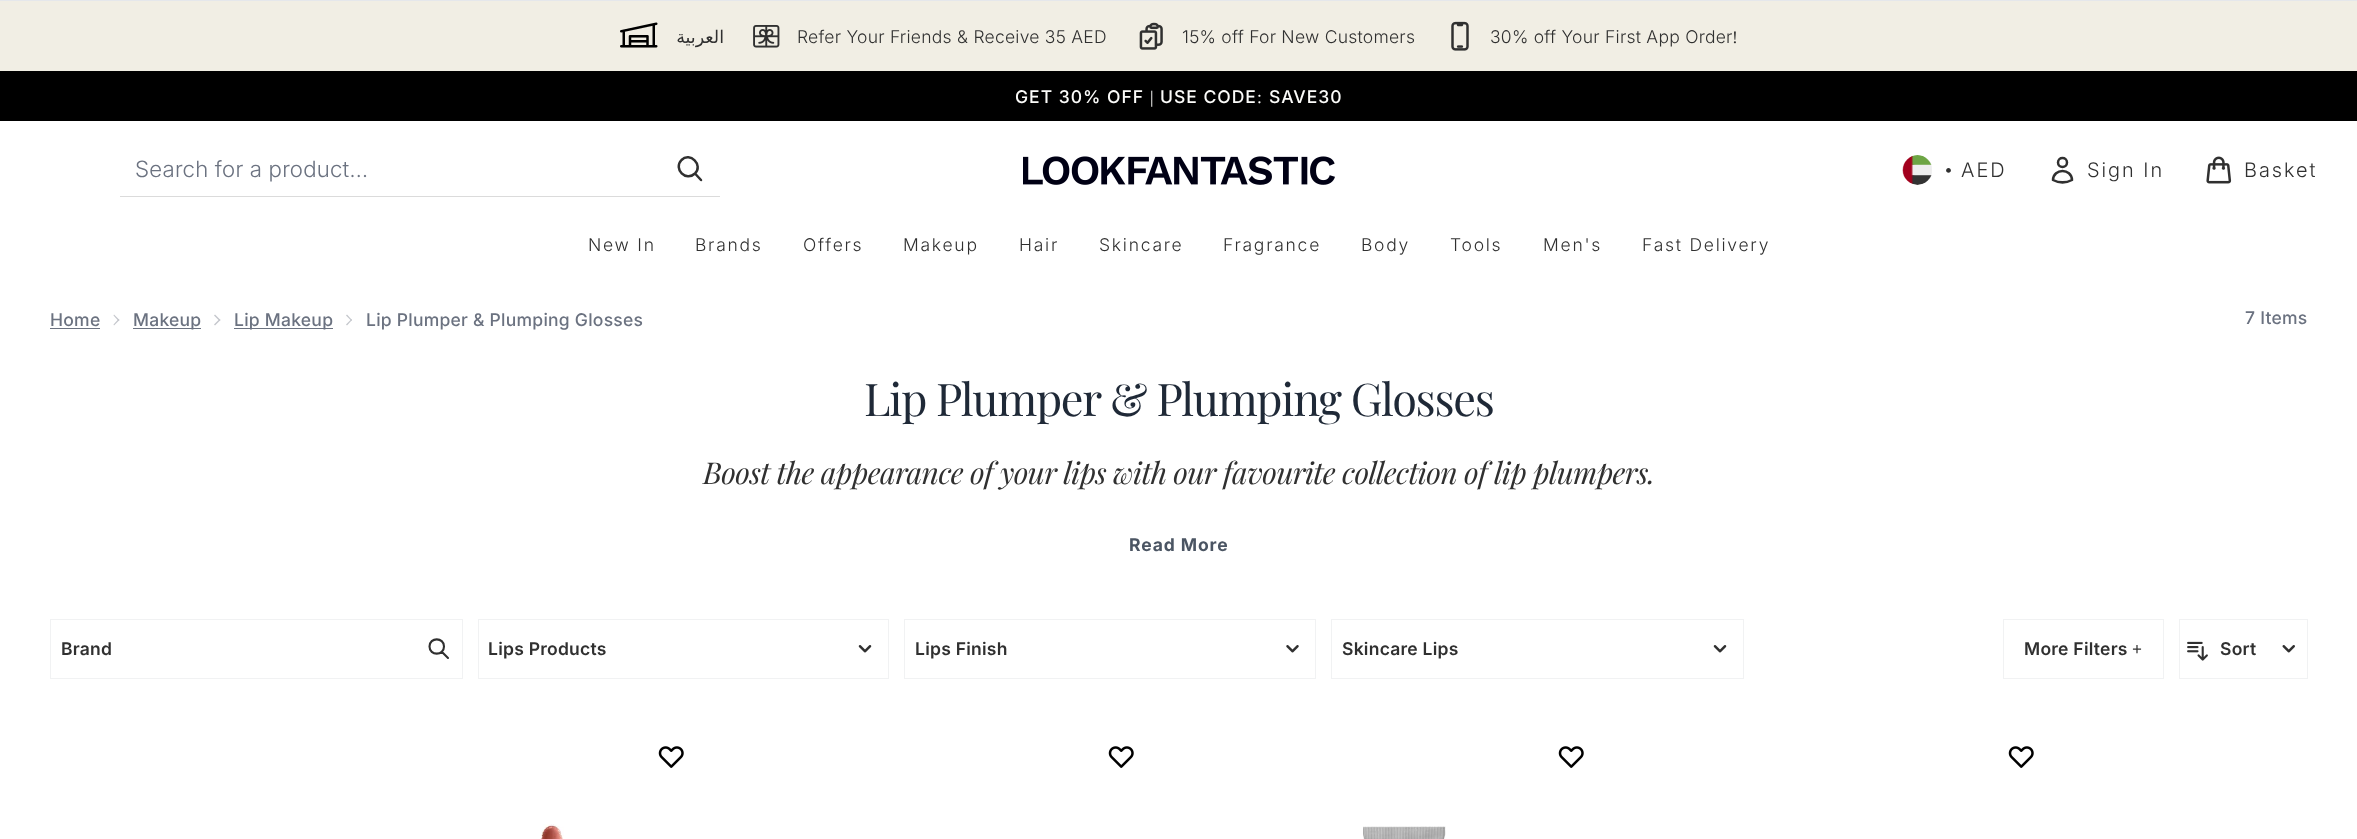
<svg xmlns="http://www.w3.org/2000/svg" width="2357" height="839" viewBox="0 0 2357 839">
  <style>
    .t1 { font: 17.5px DejaVu Sans; letter-spacing: 0.25px; direction: rtl; fill: #303030; }
    .t2 { font: 300 17.5px Inter; letter-spacing: 0.25px; fill: #303030; }
    .t3 { font: 17.5px Liberation Serif; letter-spacing: 0.25px; fill: #303030; }
    .t4 { font: 500 17.5px Inter; letter-spacing: 1px; fill: #fbfbf9; }
    .t5 { font: 17.5px Liberation Serif; letter-spacing: 1px; fill: #fbfbf9; }
    .t6 { font: 300 22.5px 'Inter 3'; letter-spacing: 0.25px; fill: #6b7280; }
    .t7 { font: 20px Liberation Serif; letter-spacing: 0.25px; fill: #303030; }
    .t8 { font: 300 20px 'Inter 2'; letter-spacing: 2px; fill: #303030; }
    .t9 { font: 300 17.5px Inter; letter-spacing: 1.75px; fill: #303030; }
    .t10 { font: 500 17.5px Inter; letter-spacing: 0.25px; fill: #6b7280; }
    .t11 { font: 45px Playfair Display; letter-spacing: -1.25px; fill: #1f2937; }
    .t12 { font: italic 30px Playfair Display; letter-spacing: -0.62px; fill: #303030; }
    .t13 { font: bold 17.5px Inter; letter-spacing: 0.9px; fill: #4b5563; }
    .t14 { font: 600 17.5px Inter; letter-spacing: 0.25px; fill: #303030; }
    .t15 { font: bold 17.5px Liberation Serif; letter-spacing: 0.25px; fill: #303030; }
  </style>
  <rect width="100%" height="100%" fill="#fff"/>
  <rect x="0" y="1" width="2357" height="70" fill="#f1eee4"/>
  <rect x="0" y="0" width="2357" height="1" fill="#e5e7eb"/>
  <image x="620" y="22" width="38" height="26" href="images/1.png"/>
  <text x="724" y="43" class="t1">العربية</text>
  <image x="753" y="25" width="27" height="23" href="images/2.png"/>
  <text x="797" y="43" class="t2">Refer Your Friends &amp; Receive 35 AED</text>
  <image x="1139" y="22" width="24" height="28" href="images/3.png"/>
  <text x="1182" y="43" class="t2">15% off For New Customers</text>
  <image x="1451" y="21" width="18" height="30" href="images/4.png"/>
  <text x="1490" y="43" class="t2">30% off Your First App Order</text>
  <text x="1732" y="43" class="t3">!</text>
  <rect x="0" y="71" width="2357" height="50" fill="#000"/>
  <text x="1015" y="103" class="t4">GET 30% OFF</text>
  <text x="1150" y="103" class="t5">|</text>
  <text x="1160" y="103" class="t4">USE CODE</text>
  <text x="1257" y="103" class="t5">:</text>
  <text x="1269" y="103" class="t4">SAVE30</text>
  <rect x="120" y="196" width="600" height="1" fill="#dbdbdb"/>
  <text x="135" y="177" class="t6">Search for a product...</text>
  <path d="M701 180L695 173.5M695 173.5C703.5 165 690 151.5 681.5 160C673 169 686 182 695 173.5Z" fill="none" stroke="#303030" stroke-width="2.5" stroke-linecap="round" stroke-linejoin="round"/>
  <image x="1023" y="156" width="312" height="29" href="images/5.png"/>
  <image x="1902" y="155" width="30" height="30" href="images/6.png"/>
  <text x="1945" y="177" class="t7">•</text>
  <text x="1961" y="177" class="t8">AED</text>
  <path d="M2067 162.5C2067 168.5 2058 168.5 2058 162.5C2058 156.5 2067 156.5 2067 162.5ZM2053 180C2053.5 168 2071.5 168 2072 180C2066 183 2059 183 2053 180Z" fill="none" stroke="#303030" stroke-width="2.5" stroke-linecap="round" stroke-linejoin="round"/>
  <text x="2087" y="177" class="t8">Sign In</text>
  <image x="2206" y="156" width="26" height="28" href="images/7.png"/>
  <text x="2244" y="177" class="t8">Basket</text>
  <text x="588" y="251" class="t9">New In</text>
  <text x="695" y="251" class="t9">Brands</text>
  <text x="803" y="251" class="t9">Offers</text>
  <text x="903" y="251" class="t9">Makeup</text>
  <text x="1019" y="251" class="t9">Hair</text>
  <text x="1099" y="251" class="t9">Skincare</text>
  <text x="1223" y="251" class="t9">Fragrance</text>
  <text x="1361" y="251" class="t9">Body</text>
  <text x="1450" y="251" class="t9">Tools</text>
  <text x="1543" y="251" class="t9">Men's</text>
  <text x="1642" y="251" class="t9">Fast Delivery</text>
  <text x="50" y="326" class="t10">Home</text>
  <rect x="50" y="328" width="50" height="1" fill="#6b7280"/>
  <path d="M114 314.5L119.5 320L118.5 321L113.5 315.5Z" fill="#c4c7cc"/>
  <path d="M118.5 319L119.5 320L114 325.5L113.5 324.5Z" fill="#c4c7cc"/>
  <rect x="133" y="328" width="68" height="1" fill="#6b7280"/>
  <text x="133" y="326" class="t10">Makeup</text>
  <path d="M215 314.5L220.5 320L219.5 321L214 315.5Z" fill="#c4c7cc"/>
  <path d="M219.5 319L220.5 320L215 325.5L214 324.5Z" fill="#c4c7cc"/>
  <rect x="234" y="328" width="99" height="1" fill="#6b7280"/>
  <text x="234" y="326" class="t10">Lip Makeup</text>
  <path d="M347 314.5L352 320L351.5 321L346 315.5Z" fill="#c4c7cc"/>
  <path d="M351.5 319L352 320L347 325.5L346 324.5Z" fill="#c4c7cc"/>
  <text x="366" y="326" class="t10">Lip Plumper &amp; Plumping Glosses</text>
  <text x="2245" y="324" class="t10">7 Items</text>
  <text x="864" y="416" class="t11">Lip Plumper &amp; Plumping Glosses</text>
  <text x="703" y="484" class="t12">Boost the appearance of your lips with our favourite collection of lip plumpers.</text>
  <text x="1129" y="551" class="t13">Read More</text>
  <rect x="50.5" y="619.5" width="412" height="59" fill="none" stroke="#f1f2f3"/>
  <text x="61" y="655" class="t14">Brand</text>
  <path d="M448 658L442 652M444 646.5C444 656 429.5 656 429.5 646.5C429.5 637 444 637 444 646.5Z" fill="none" stroke="#303030" stroke-width="2.1" stroke-linecap="round" stroke-linejoin="round"/>
  <rect x="478.5" y="619.5" width="410" height="59" fill="none" stroke="#f1f2f3"/>
  <text x="488" y="655" class="t14">Lips Products</text>
  <image x="858" y="645" width="14" height="8" href="images/8.png"/>
  <rect x="904.5" y="619.5" width="411" height="59" fill="none" stroke="#f1f2f3"/>
  <text x="915" y="655" class="t14">Lips Finish</text>
  <image x="1286" y="645" width="13" height="8" href="images/9.png"/>
  <rect x="1331.5" y="619.5" width="412" height="59" fill="none" stroke="#f1f2f3"/>
  <text x="1342" y="655" class="t14">Skincare Lips</text>
  <image x="1713" y="645" width="14" height="8" href="images/8.png"/>
  <rect x="2003.5" y="619.5" width="160" height="59" fill="none" stroke="#f1f2f3"/>
  <text x="2024" y="655" class="t14">More Filters</text>
  <text x="2132" y="655" class="t15">+</text>
  <rect x="2179.5" y="619.5" width="128" height="59" fill="none" stroke="#f1f2f3"/>
  <image x="2187" y="641" width="21" height="20" href="images/10.png"/>
  <text x="2220" y="655" class="t14">Sort</text>
  <image x="2282" y="645" width="13" height="8" href="images/11.png"/>
  <image x="658" y="746" width="26" height="22" href="images/12.png"/>
  <image x="540" y="824" width="24" height="15" href="images/13.png"/>
  <image x="1108" y="746" width="26" height="22" href="images/12.png"/>
  <image x="1558" y="746" width="26" height="22" href="images/12.png"/>
  <image x="1363" y="826" width="83" height="13" href="images/14.png"/>
  <image x="2008" y="746" width="26" height="22" href="images/12.png"/>
</svg>
